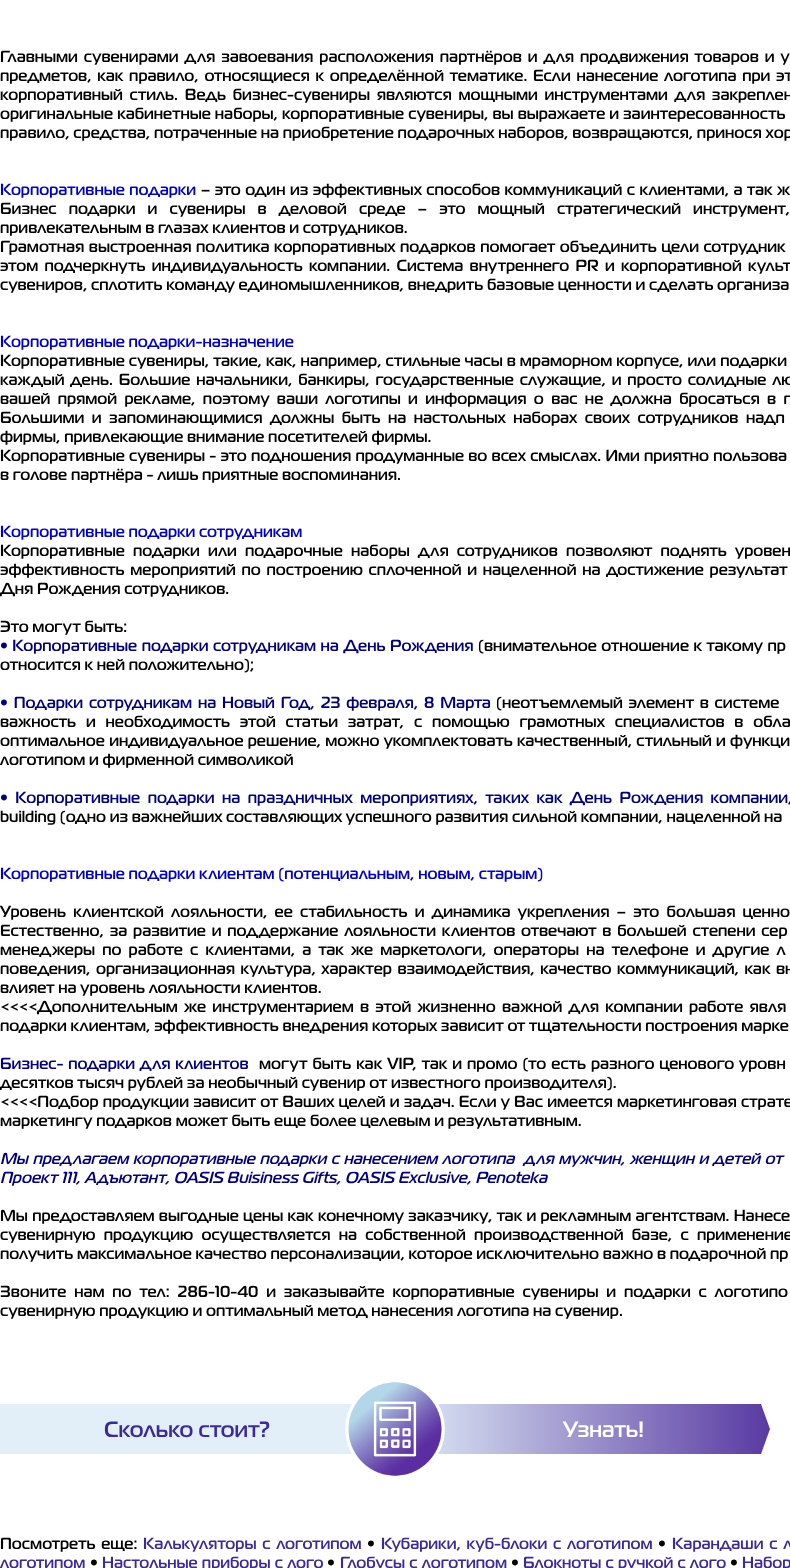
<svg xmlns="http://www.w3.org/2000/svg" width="790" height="1568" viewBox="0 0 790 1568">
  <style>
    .t1 { font: 500 16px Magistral; fill: #000; }
    .t2 { font: 500 16px Magistral; fill: #0000cd; }
    .t3 { font: 500 16px Magistral; fill: #000080; }
    .t4 { font: italic 500 16px Magistral; fill: #000080; }
    .t5 { font: 500 22px Magistral; fill: #3b2a98; }
    .t6 { font: 500 22px Magistral; fill: #fff; }
    .t7 { font: 500 16px Magistral; fill: #3b2a98; }
  </style>
  <defs>
    <linearGradient id="g1" gradientUnits="userSpaceOnUse" x1="0" y1="1429" x2="790" y2="1429"><stop offset="0" stop-color="#e2eff8"/><stop offset="0.5" stop-color="#e2eff8"/><stop offset="1" stop-color="#52309e"/></linearGradient>
  </defs>
  <rect width="100%" height="100%" fill="#fff"/>
  <text x="0" y="62" word-spacing="2.25" class="t1">Главными сувенирами для завоевания расположения партнёров и для продвижения товаров и у</text>
  <text x="0" y="81" word-spacing="2" class="t1">предметов, как правило, относящиеся к определённой тематике. Если нанесение логотипа при эт</text>
  <text x="0" y="100" word-spacing="3" class="t1">корпоративный стиль. Ведь бизнес-сувениры являются мощными инструментами для закреплен</text>
  <text x="0" y="119" word-spacing="0.25" class="t1">оригинальные кабинетные наборы, корпоративные сувениры, вы выражаете и заинтересованность</text>
  <text x="0" y="138" class="t1">правило, средства, потраченные на приобретение подарочных наборов, возвращаются, принося хор</text>
  <text x="0" y="195" word-spacing="0.75" class="t2">Корпоративные подарки</text>
  <text x="201" y="195" word-spacing="0.75" class="t1">– это один из эффективных способов коммуникаций с клиентами, а так ж</text>
  <text x="0" y="214" word-spacing="8.4" class="t1">Бизнес подарки и сувениры в деловой среде – это мощный стратегический инструмент,</text>
  <text x="0" y="233" class="t1">привлекательным в глазах клиентов и сотрудников.</text>
  <text x="0" y="252" word-spacing="0.75" class="t1">Грамотная выстроенная политика корпоративных подарков помогает объединить цели сотрудник</text>
  <text x="0" y="271" word-spacing="2.5" class="t1">этом подчеркнуть индивидуальность компании. Система внутреннего PR и корпоративной культ</text>
  <text x="0" y="290" class="t1">сувениров, сплотить команду единомышленников, внедрить базовые ценности и сделать организа</text>
  <text x="0" y="347" class="t2">Корпоративные подарки-назначение</text>
  <text x="0" y="366" word-spacing="0.25" class="t1">Корпоративные сувениры, такие, как, например, стильные часы в мраморном корпусе, или подарки</text>
  <text x="0" y="385" word-spacing="2.1" class="t1">каждый день. Большие начальники, банкиры, государственные служащие, и просто солидные лю</text>
  <text x="0" y="404" word-spacing="3.6" class="t1">вашей прямой рекламе, поэтому ваши логотипы и информация о вас не должна бросаться в г</text>
  <text x="0" y="423" word-spacing="3.75" class="t1">Большими и запоминающимися должны быть на настольных наборах своих сотрудников надп</text>
  <text x="0" y="442" class="t1">фирмы, привлекающие внимание посетителей фирмы.</text>
  <text x="0" y="461" word-spacing="0.5" class="t1">Корпоративные сувениры - это подношения продуманные во всех смыслах. Ими приятно пользова</text>
  <text x="0" y="480" class="t1">в голове партнёра - лишь приятные воспоминания.</text>
  <text x="0" y="537" class="t2">Корпоративные подарки сотрудникам</text>
  <text x="0" y="556" word-spacing="4.5" class="t1">Корпоративные подарки или подарочные наборы для сотрудников позволяют поднять уровен</text>
  <text x="0" y="575" word-spacing="2" class="t1">эффективность мероприятий по построению сплоченной и нацеленной на достижение результат</text>
  <text x="0" y="594" class="t1">Дня Рождения сотрудников.</text>
  <text x="0" y="632" class="t1">Это могут быть:</text>
  <text x="0" y="651" word-spacing="0.75" class="t3">• Корпоративные подарки сотрудникам на День Рождения</text>
  <text x="478" y="651" word-spacing="0.75" class="t1">(внимательное отношение к такому пр</text>
  <text x="0" y="670" class="t1">относится к ней положительно);</text>
  <text x="0" y="708" word-spacing="2.1" class="t3">• Подарки сотрудникам на Новый Год, 23 февраля, 8 Марта</text>
  <text x="496" y="708" word-spacing="2.1" class="t1">(неотъемлемый элемент в системе</text>
  <text x="0" y="727" word-spacing="6.1" class="t1">важность и необходимость этой статьи затрат, с помощью грамотных специалистов в обла</text>
  <text x="0" y="746" word-spacing="0.5" class="t1">оптимальное индивидуальное решение, можно укомплектовать качественный, стильный и функци</text>
  <text x="0" y="765" class="t1">логотипом и фирменной символикой</text>
  <text x="0" y="803" word-spacing="3.75" class="t3">• Корпоративные подарки на праздничных мероприятиях, таких как День Рождения компании,</text>
  <text x="0" y="822" class="t1">building (одно из важнейших составляющих успешного развития сильной компании, нацеленной на</text>
  <text x="0" y="879" class="t2">Корпоративные подарки клиентам (потенциальным, новым, старым)</text>
  <text x="0" y="917" word-spacing="3.5" class="t1">Уровень клиентской лояльности, ее стабильность и динамика укрепления – это большая ценно</text>
  <text x="0" y="936" word-spacing="2.1" class="t1">Естественно, за развитие и поддержание лояльности клиентов отвечают в большей степени сер</text>
  <text x="0" y="955" word-spacing="3.4" class="t1">менеджеры по работе с клиентами, а так же маркетологи, операторы на телефоне и другие л</text>
  <text x="0" y="974" word-spacing="1.75" class="t1">поведения, организационная культура, характер взаимодействия, качество коммуникаций, как вн</text>
  <text x="0" y="993" class="t1">влияет на уровень лояльности клиентов.</text>
  <text x="0" y="1012" word-spacing="2.5" class="t1">&lt;&lt;&lt;&lt;Дополнительным же инструментарием в этой жизненно важной для компании работе явля</text>
  <text x="0" y="1031" class="t1">подарки клиентам, эффективность внедрения которых зависит от тщательности построения марке</text>
  <text x="0" y="1069" word-spacing="1" class="t3">Бизнес- подарки для клиентов</text>
  <text x="259" y="1069" word-spacing="1.25" class="t1">могут быть как VIP, так и промо (то есть разного ценового уровн</text>
  <text x="0" y="1088" class="t1">десятков тысяч рублей за необычный сувенир от известного производителя).</text>
  <text x="0" y="1107" word-spacing="0.5" class="t1">&lt;&lt;&lt;&lt;Подбор продукции зависит от Ваших целей и задач. Если у Вас имеется маркетинговая страте</text>
  <text x="0" y="1126" class="t1">маркетингу подарков может быть еще более целевым и результативным.</text>
  <text x="0" y="1164" word-spacing="0.75" class="t4" xml:space="preserve">Мы предлагаем корпоративные подарки c нанесением логотипа  для мужчин, женщин и детей от</text>
  <text x="0" y="1183" class="t4">Проект 111, Адъютант, OASIS Buisiness Gifts, OASIS Exclusive, Penoteka</text>
  <text x="0" y="1221" word-spacing="0.5" class="t1">Мы предоставляем выгодные цены как конечному заказчику, так и рекламным агентствам. Нанесе</text>
  <text x="0" y="1240" word-spacing="4.5" class="t1">сувенирную продукцию осуществляется на собственной производственной базе, с применение</text>
  <text x="0" y="1259" class="t1">получить максимальное качество персонализации, которое исключительно важно в подарочной пр</text>
  <text x="0" y="1297" word-spacing="4.1" class="t1">Звоните нам по тел: 286-10-40 и заказывайте корпоративные сувениры и подарки с логотипо</text>
  <text x="0" y="1316" class="t1">сувенирную продукцию и оптимальный метод нанесения логотипа на сувенир.</text>
  <rect x="0" y="1404" width="770" height="50" fill="url(#g1)"/>
  <text x="104" y="1437" class="t5">Сколько стоит?</text>
  <image x="345" y="1382" width="100" height="94" href="images/1.png"/>
  <text x="563" y="1437" class="t6">Узнать!</text>
  <path d="M752 1379H782L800 1429H770Z" fill="#fff"/>
  <path d="M770 1429H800L782 1479H752Z" fill="#fff"/>
  <text x="0" y="1549" word-spacing="2" class="t1">Посмотреть еще:</text>
  <text x="143" y="1549" word-spacing="2" class="t7">Калькуляторы с логотипом</text>
  <text x="367" y="1549" class="t1">•</text>
  <text x="381" y="1549" word-spacing="2" class="t7">Кубарики, куб-блоки с логотипом</text>
  <text x="658" y="1549" class="t1">•</text>
  <text x="672" y="1549" word-spacing="2" class="t7">Карандаши с л</text>
  <text x="0" y="1568" class="t7">логотипом</text>
  <text x="90" y="1568" class="t1">•</text>
  <text x="102" y="1568" word-spacing="0.5" class="t7">Настольные приборы с лого</text>
  <text x="327" y="1568" class="t1">•</text>
  <text x="340" y="1568" word-spacing="0.5" class="t7">Глобусы с логотипом</text>
  <text x="511" y="1568" class="t1">•</text>
  <text x="523" y="1568" word-spacing="0.5" class="t7">Блокноты с ручкой с лого</text>
  <text x="730" y="1568" class="t1">•</text>
  <text x="742" y="1568" word-spacing="0.5" class="t7">Набор</text>
</svg>
